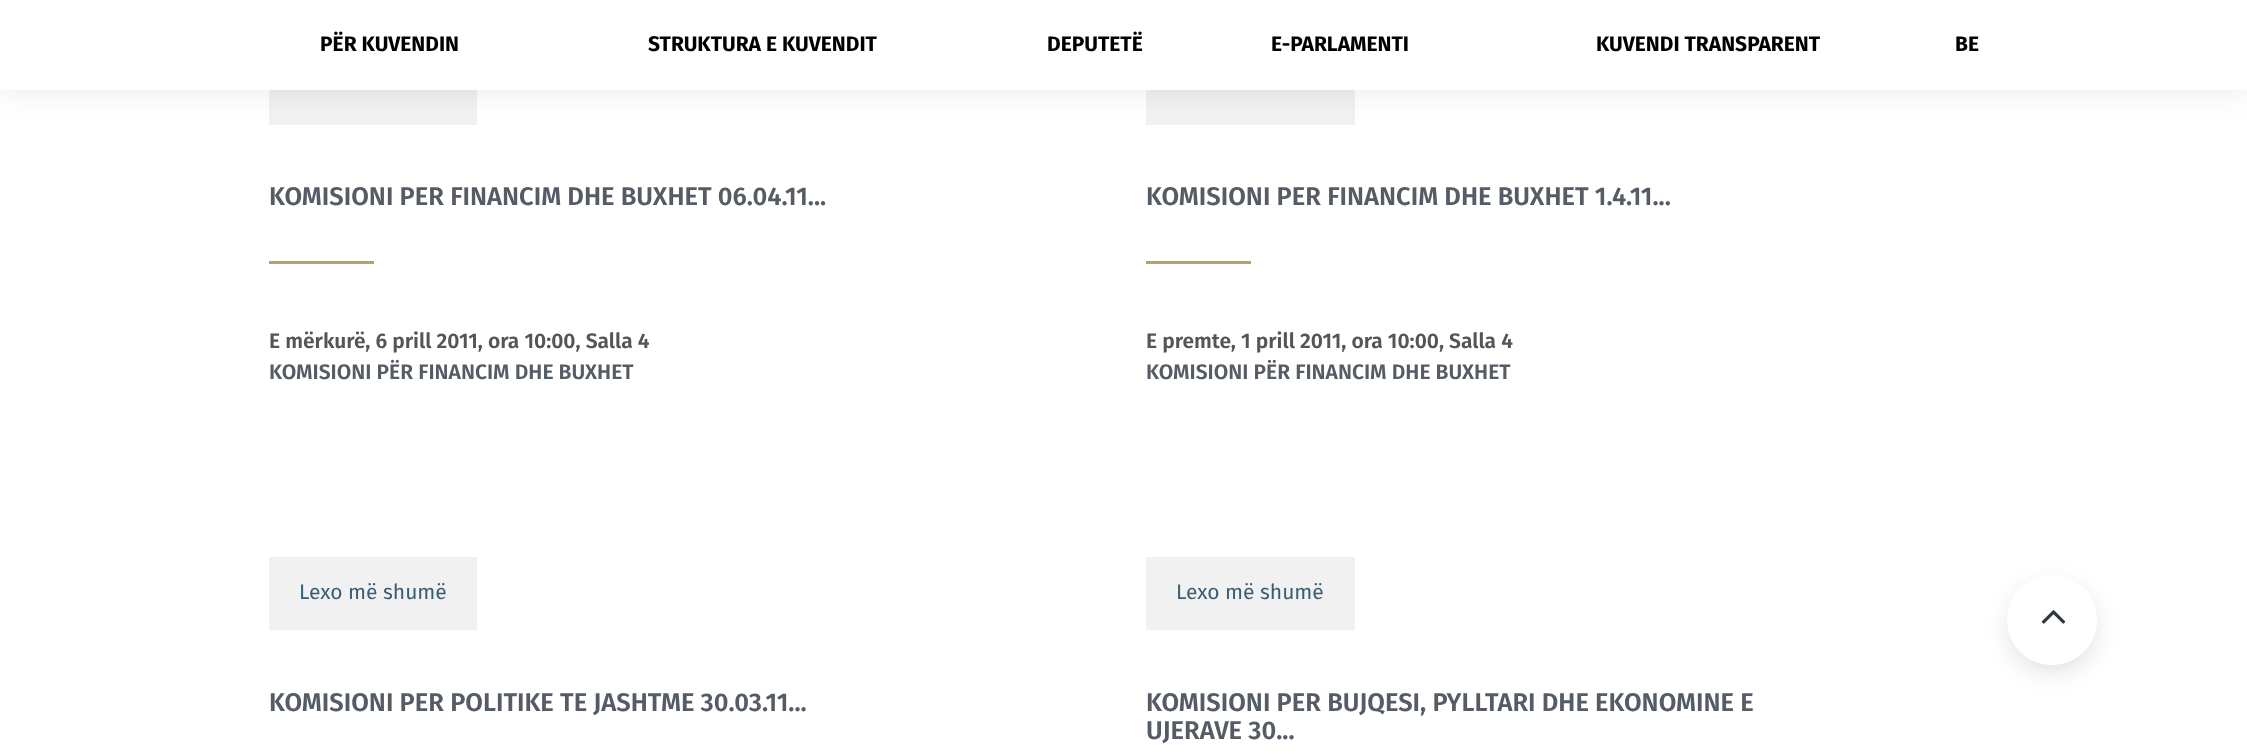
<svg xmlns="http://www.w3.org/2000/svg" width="2247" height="754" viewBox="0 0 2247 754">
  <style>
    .t1 { font: bold 21px Fira Sans; fill: #000; }
    .t2 { font: 600 25.5px Fira Sans; fill: #565c65; }
    .t3 { font: 600 21px Fira Sans; fill: #555; }
    .t4 { font: 600 21px Fira Sans; fill: #565c65; }
    .t5 { font: 21px Fira Sans; fill: #395e74; }
  </style>
  <defs>
    <clipPath id="clip1"><path d="M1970 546H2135V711H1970ZM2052 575C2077 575 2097 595 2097 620C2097 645 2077 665 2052 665C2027 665 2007 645 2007 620C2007 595 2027 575 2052 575Z" clip-rule="evenodd"/></clipPath>
  </defs>
  <rect width="100%" height="100%" fill="#fff"/>
  <rect x="269" y="90" width="208" height="35" fill="#f1f1f1"/>
  <rect x="1146" y="90" width="209" height="35" fill="#f1f1f1"/>
  <rect x="-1" y="-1" width="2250" height="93" fill="#00000014" filter="blur(15px)"/>
  <rect x="0" y="0" width="2247" height="90" fill="#fff"/>
  <text x="320" y="51" class="t1">PËR KUVENDIN</text>
  <text x="648" y="51" class="t1">STRUKTURA E KUVENDIT</text>
  <text x="1047" y="51" class="t1">DEPUTETË</text>
  <text x="1271" y="51" class="t1">E-PARLAMENTI</text>
  <text x="1596" y="51" class="t1">KUVENDI TRANSPARENT</text>
  <text x="1955" y="51" class="t1">BE</text>
  <text x="269" y="205" class="t2">KOMISIONI PER FINANCIM DHE BUXHET 06.04.11...</text>
  <rect x="269" y="261" width="105" height="3" fill="#b6a268"/>
  <text x="269" y="348" class="t3">E mërkurë, 6 prill 2011, ora 10:00, Salla 4</text>
  <text x="269" y="379" class="t4">KOMISIONI PËR FINANCIM DHE BUXHET</text>
  <rect x="269" y="557" width="208" height="73" fill="#f1f1f1"/>
  <text x="299" y="599" class="t5">Lexo më shumë</text>
  <text x="1146" y="205" class="t2">KOMISIONI PER FINANCIM DHE BUXHET 1.4.11...</text>
  <rect x="1146" y="261" width="105" height="3" fill="#b6a268"/>
  <text x="1146" y="348" class="t3">E premte, 1 prill 2011, ora 10:00, Salla 4</text>
  <text x="1146" y="379" class="t4">KOMISIONI PËR FINANCIM DHE BUXHET</text>
  <rect x="1146" y="557" width="209" height="73" fill="#f1f1f1"/>
  <text x="1176" y="599" class="t5">Lexo më shumë</text>
  <text x="269" y="711" class="t2">KOMISIONI PER POLITIKE TE JASHTME 30.03.11...</text>
  <text x="1146" y="711" class="t2">KOMISIONI PER BUJQESI, PYLLTARI DHE EKONOMINE E</text>
  <text x="1146" y="739" class="t2">UJERAVE 30...</text>
  <g clip-path="url(#clip1)">
    <rect x="2012" y="588" width="81" height="81" rx="40.5" fill="#00000026" filter="blur(13.5px)"/>
  </g>
  <circle cx="2052" cy="620" r="45" fill="#ffffff4d"/>
  <image x="2041" y="610" width="25" height="14" href="images/1.png"/>
</svg>
